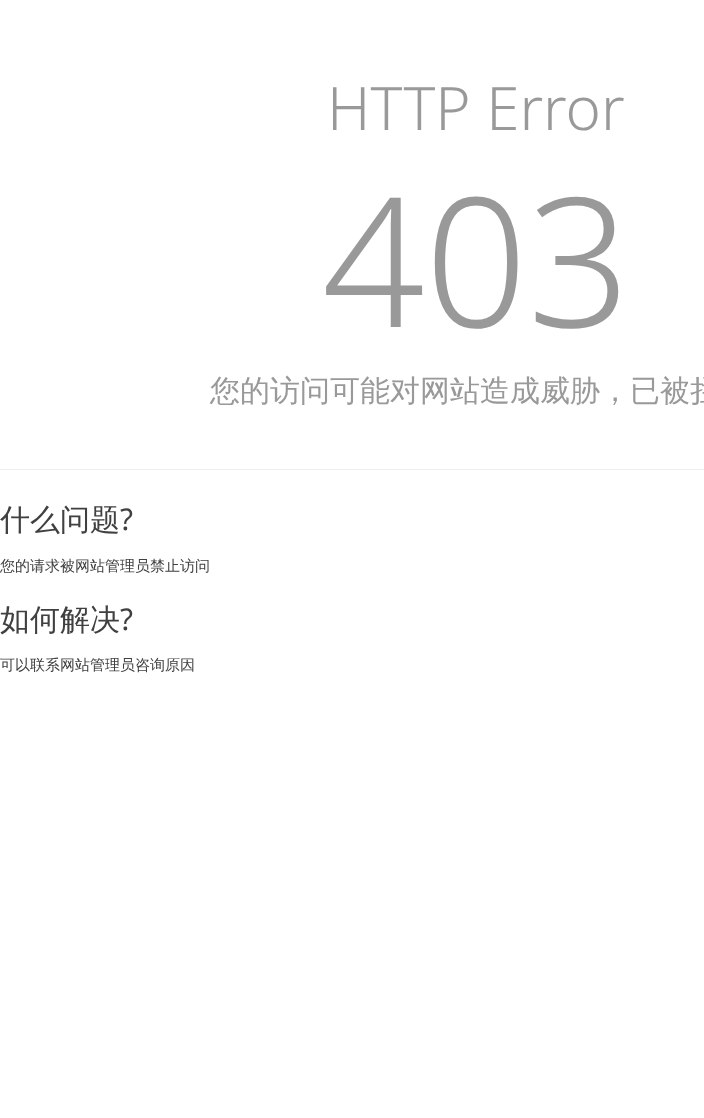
<svg xmlns="http://www.w3.org/2000/svg" width="704" height="1118" viewBox="0 0 704 1118">
  <style>
    .t1 { font: 300 60px Noto Sans; fill: #999; }
    .t2 { font: 300 180px Noto Sans; fill: #999; }
    .t3 { font: 500 30px WenQuanYi Zen Hei; fill: #999; }
    .t4 { font: 500 30px WenQuanYi Zen Hei; fill: #404040; }
    .t5 { font: 30px Noto Sans; fill: #404040; }
    .t6 { font: 500 15px WenQuanYi Zen Hei; fill: #404040; }
  </style>
  <rect width="100%" height="100%" fill="#fff"/>
  <text x="327" y="130" class="t1">HTTP Error</text>
  <text x="322" y="327" class="t2">403</text>
  <text x="210" y="401" class="t3">您的访问可能对网站造成威胁，已被拦</text>
  <rect x="0" y="469" width="704" height="1" fill="#eee"/>
  <text x="0" y="530" class="t4">什么问题</text>
  <text x="120" y="530" class="t5">?</text>
  <text x="0" y="571" class="t6">您的请求被网站管理员禁止访问</text>
  <text x="0" y="630" class="t4">如何解决</text>
  <text x="120" y="630" class="t5">?</text>
  <text x="0" y="670" class="t6">可以联系网站管理员咨询原因</text>
</svg>
